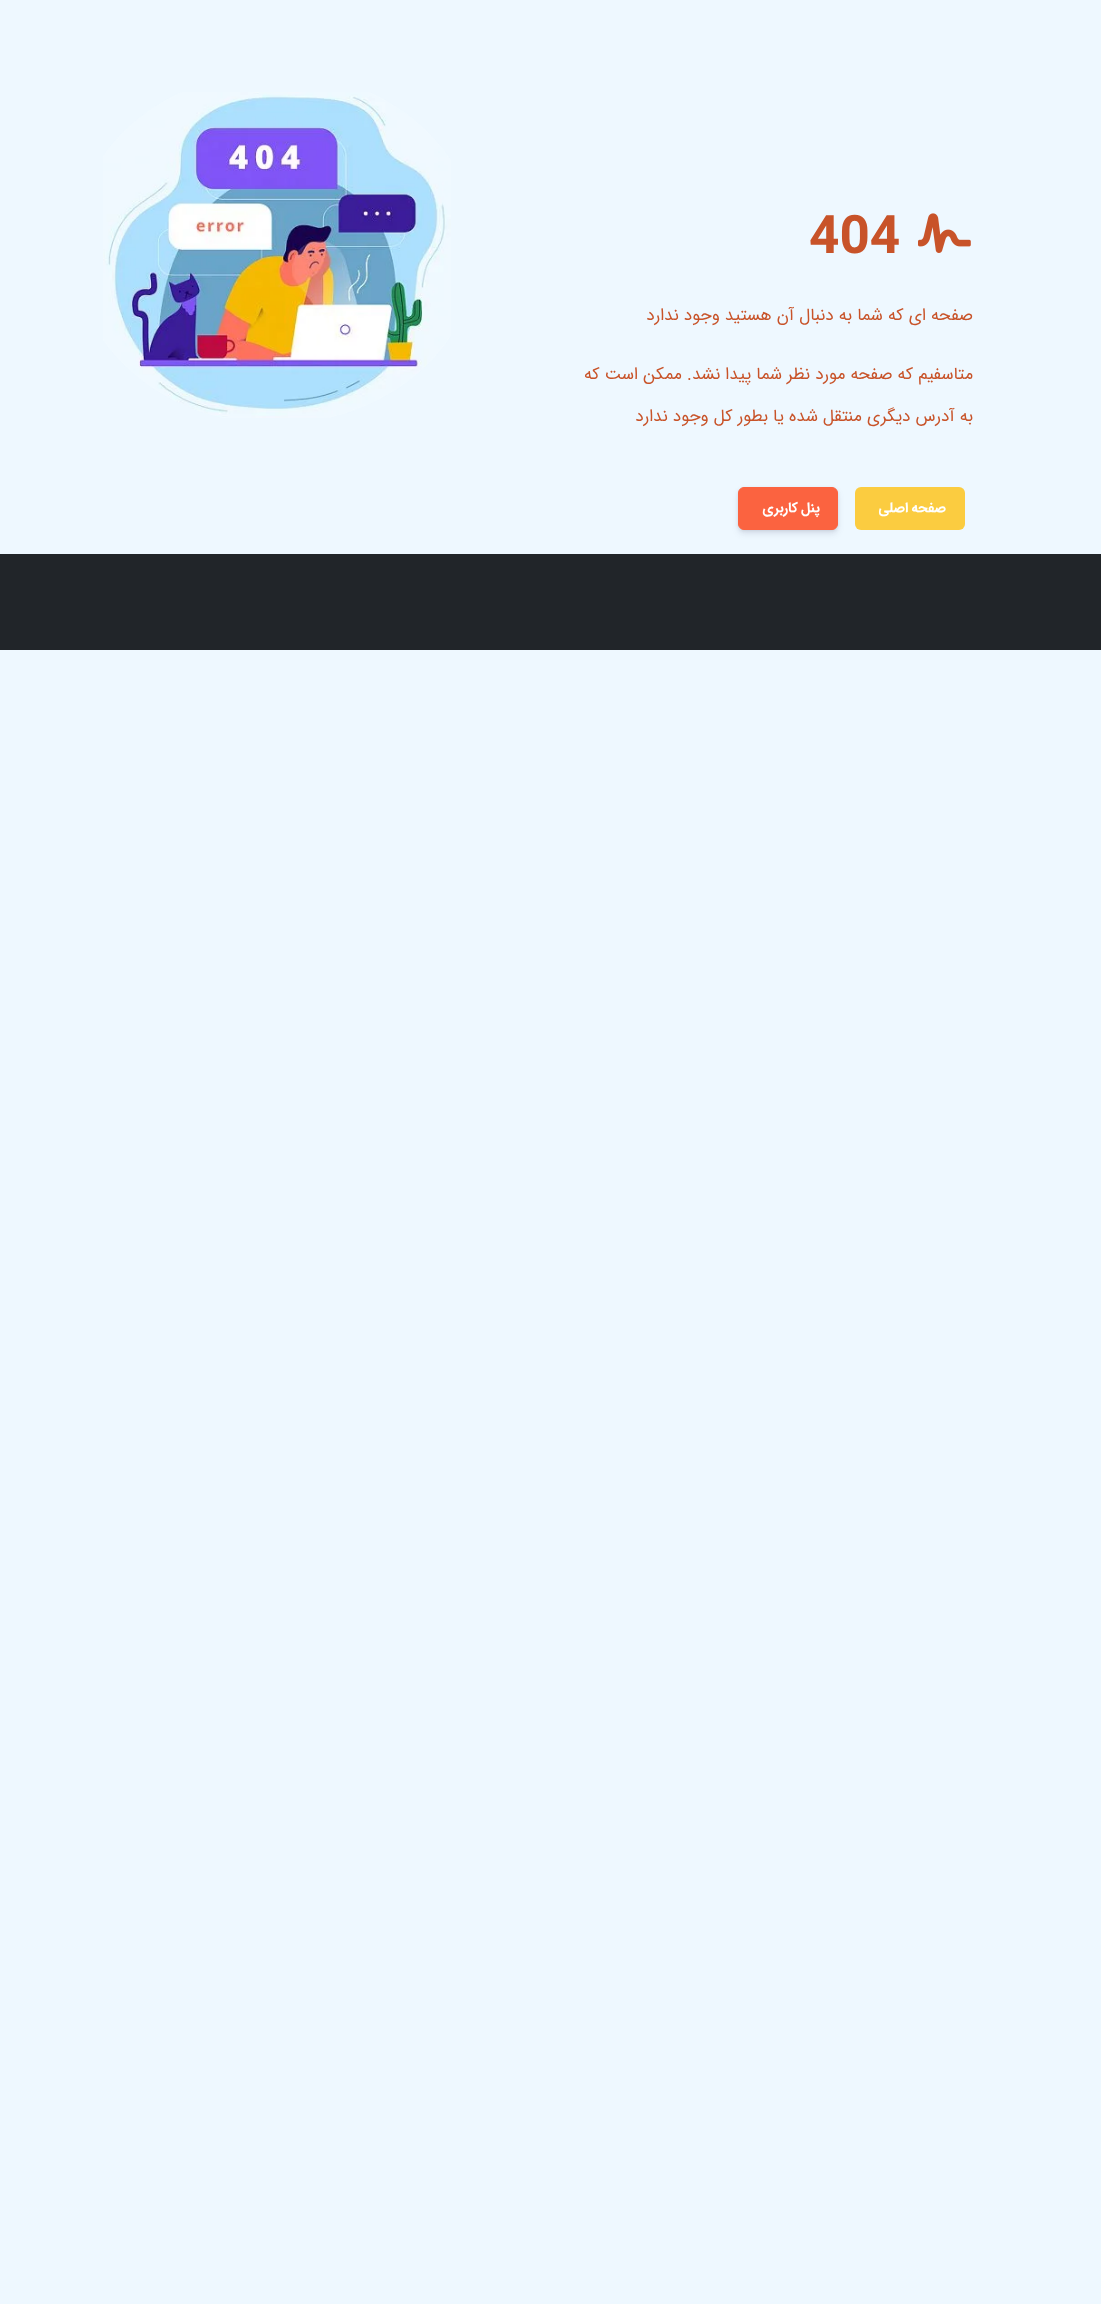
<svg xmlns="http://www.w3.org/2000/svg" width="1101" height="2304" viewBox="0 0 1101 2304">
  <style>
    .t1 { font: bold 53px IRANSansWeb; fill: #c85329; }
    .t2 { font: 17px IRANSansWeb; direction: rtl; fill: #c85329; }
    .t3 { font: bold 14px IRANSansWeb; letter-spacing: 0.25px; direction: rtl; fill: #fff; }
  </style>
  <rect width="100%" height="100%" fill="#eef8ff"/>
  <image x="918" y="213" width="53" height="40" href="images/1.png"/>
  <text x="809" y="253" class="t1">404</text>
  <text x="973" y="320" class="t2">صفحه ای که شما به دنبال آن هستید وجود ندارد</text>
  <text x="973" y="379" class="t2">متاسفیم که صفحه مورد نظر شما پیدا نشد. ممکن است که</text>
  <text x="973" y="421" class="t2">به آدرس دیگری منتقل شده یا بطور کل وجود ندارد</text>
  <rect x="855" y="487" width="110" height="43" rx="6" fill="#fbcc40"/>
  <text x="946" y="512" word-spacing="-1" class="t3">صفحه اصلی</text>
  <rect x="738" y="488" width="100" height="43" rx="6" fill="#00000014" filter="blur(1.5px)"/>
  <rect x="738" y="491" width="100" height="43" rx="6" fill="#32325d1c" filter="blur(3px)"/>
  <rect x="738.5" y="487.5" width="99" height="42" rx="5.5" fill="#fb6340" stroke="#fb6340"/>
  <text x="820" y="512" word-spacing="-1" class="t3">پنل کاربری</text>
  <image x="103" y="92" width="348" height="326" href="images/2.png"/>
  <rect x="0" y="554" width="1101" height="96" fill="#212529"/>
</svg>
